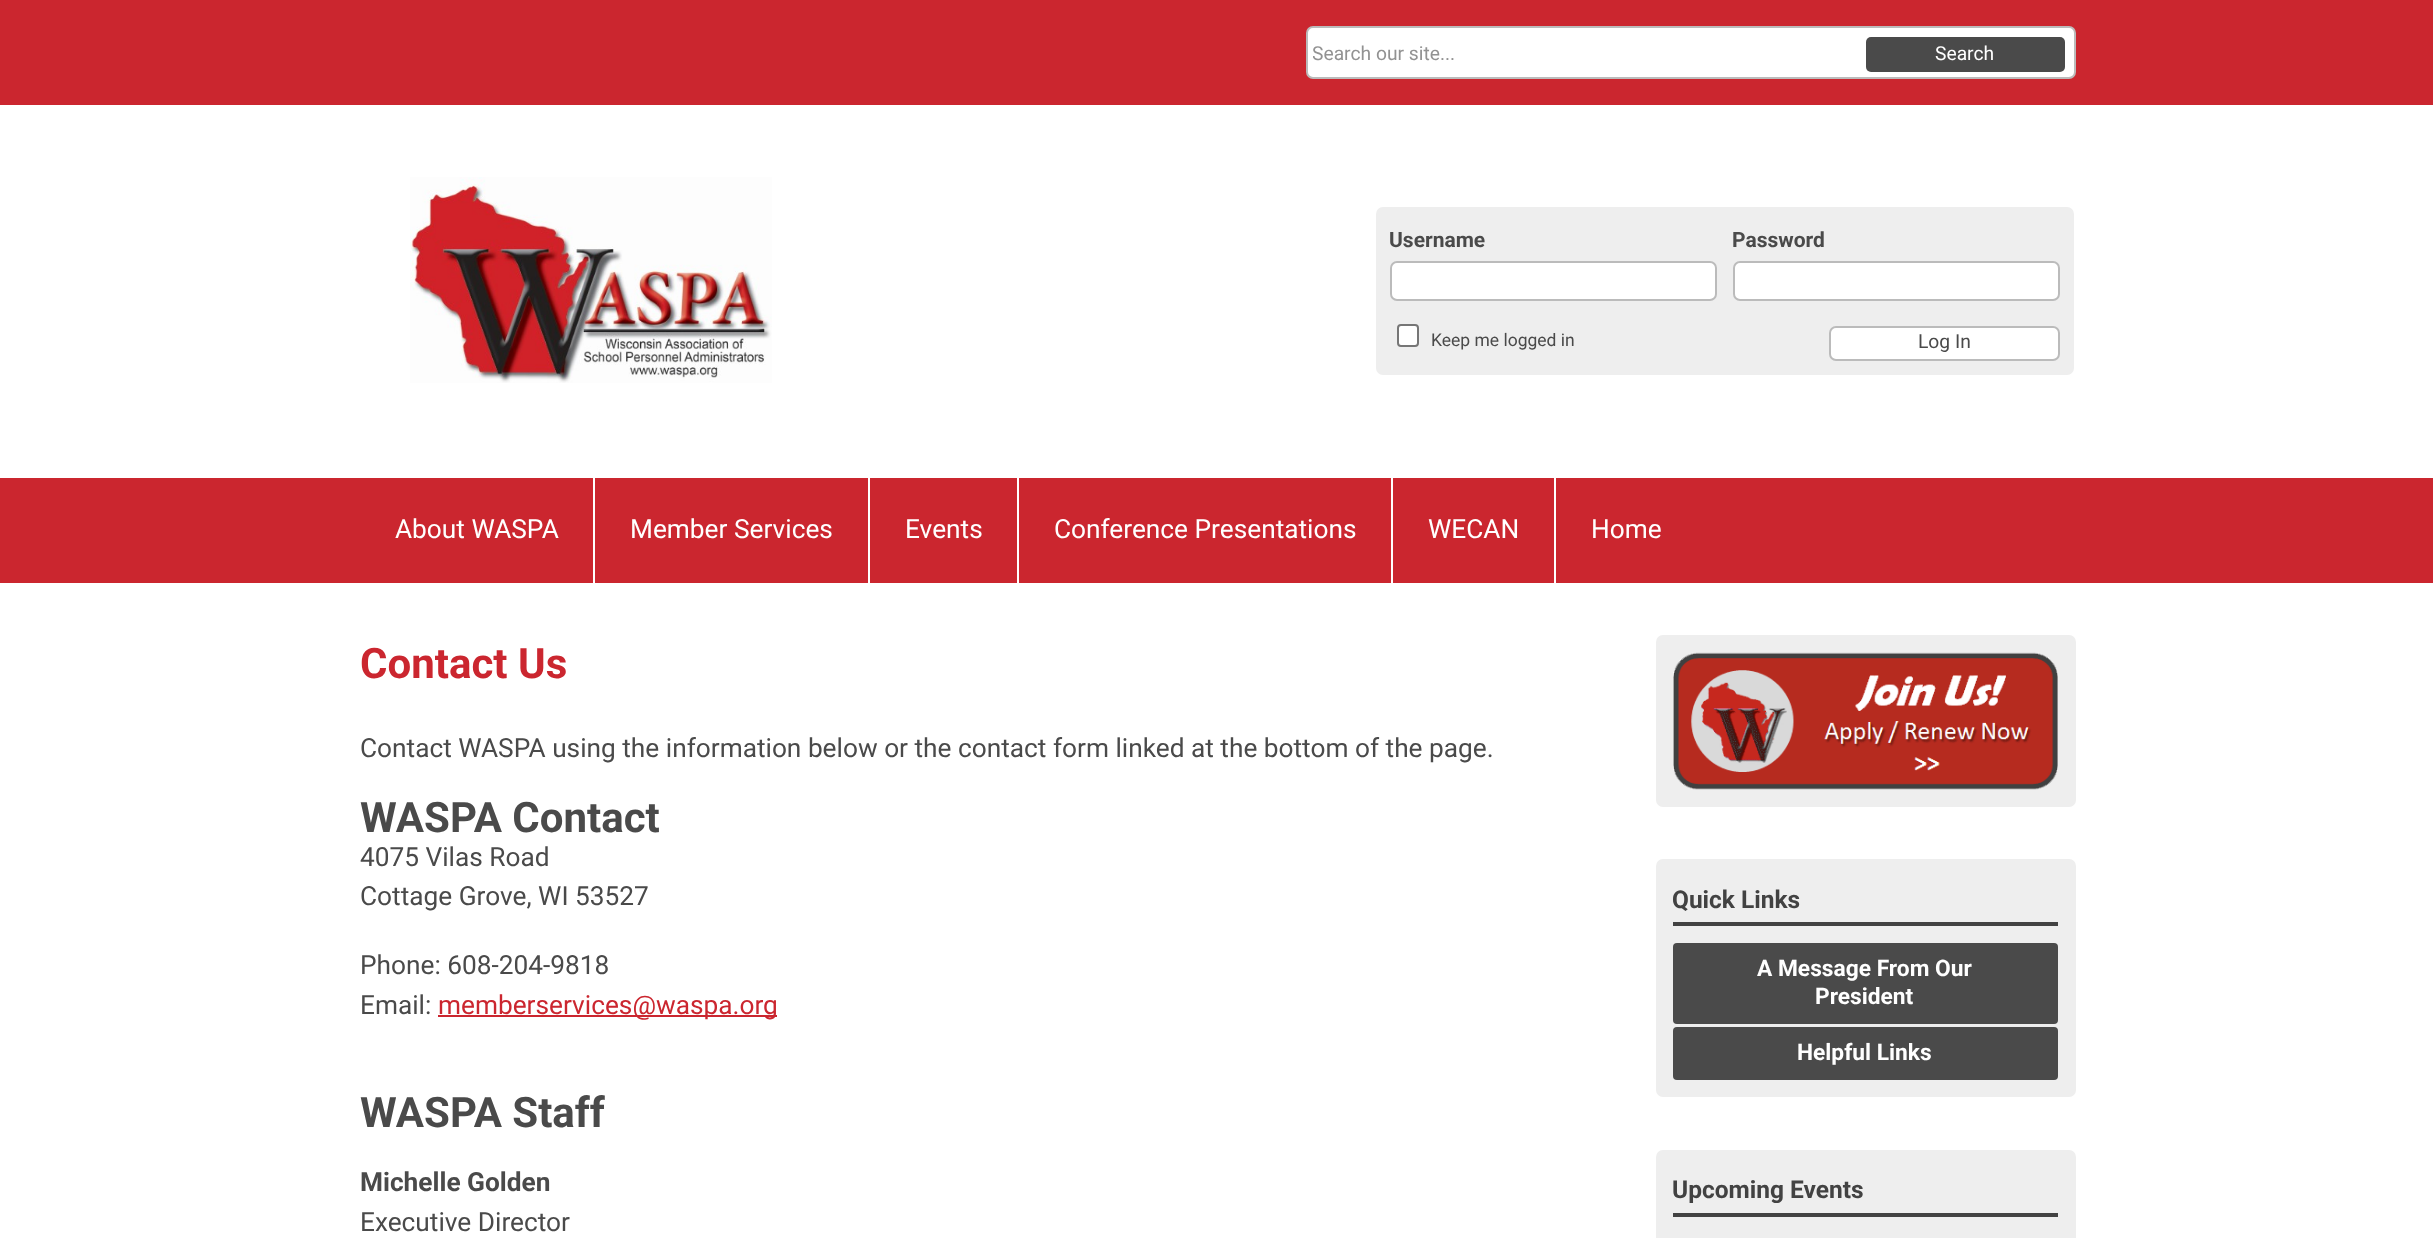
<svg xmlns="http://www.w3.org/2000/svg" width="2433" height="1238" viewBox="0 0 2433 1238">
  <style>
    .t1 { font: 19.25px Roboto; fill: #929292; }
    .t2 { font: 19.25px Roboto; fill: #fff; }
    .t3 { font: bold 21px Roboto; fill: #4a4a4a; }
    .t4 { font: 17.5px Roboto; fill: #4a4a4a; }
    .t5 { font: 19.25px Roboto; fill: #4a4a4a; }
    .t6 { font: 26.25px Roboto; fill: #fff; }
    .t7 { font: bold 42px Roboto; fill: #cb262f; }
    .t8 { font: 26.25px Roboto; fill: #4a4a4a; }
    .t9 { font: bold 42px Roboto; fill: #4a4a4a; }
    .t10 { font: 26.25px Roboto; fill: #cb262f; }
    .t11 { font: bold 26.25px Roboto; fill: #4a4a4a; }
    .t12 { font: bold 24.5px Roboto; fill: #424242; }
    .t13 { font: bold 22.75px Roboto; fill: #fff; }
  </style>
  <defs>
    <clipPath id="clip1"><rect x="1313" y="42" width="519" height="23"/></clipPath>
  </defs>
  <rect width="100%" height="100%" fill="#fff"/>
  <rect x="0" y="0" width="2433" height="105" fill="#cb262f"/>
  <rect x="1307" y="27" width="768" height="51" rx="6" fill="#fff" stroke="#bbb" stroke-width="2"/>
  <g clip-path="url(#clip1)">
    <text x="1312" y="60" class="t1">Search our site...</text>
  </g>
  <rect x="1866" y="37" width="199" height="35" rx="5" fill="#4a4a4a"/>
  <text x="1935" y="60" class="t2">Search</text>
  <image x="410" y="177" width="362" height="206" href="images/1.png"/>
  <rect x="1376" y="207" width="698" height="168" rx="7" fill="#eee"/>
  <text x="1389" y="247" class="t3">Username</text>
  <rect x="1391" y="262" width="325" height="38" rx="6" fill="#fff" stroke="#bbb" stroke-width="2"/>
  <text x="1732" y="247" class="t3">Password</text>
  <rect x="1734" y="262" width="325" height="38" rx="6" fill="#fff" stroke="#bbb" stroke-width="2"/>
  <rect x="1398" y="325" width="20" height="21" rx="3" fill="#fff" stroke="#767676" stroke-width="2"/>
  <text x="1431" y="346" class="t4">Keep me logged in</text>
  <rect x="1830" y="327" width="229" height="33" rx="6" fill="#fff" stroke="#bbb" stroke-width="2"/>
  <text x="1918" y="348" class="t5">Log In</text>
  <rect x="0" y="478" width="2433" height="105" fill="#cb262f"/>
  <text x="395" y="538" class="t6">About WASPA</text>
  <rect x="593" y="478" width="2" height="105" fill="#fff"/>
  <text x="630" y="538" class="t6">Member Services</text>
  <rect x="868" y="478" width="2" height="105" fill="#fff"/>
  <text x="905" y="538" class="t6">Events</text>
  <rect x="1017" y="478" width="2" height="105" fill="#fff"/>
  <text x="1054" y="538" class="t6">Conference Presentations</text>
  <rect x="1391" y="478" width="2" height="105" fill="#fff"/>
  <text x="1428" y="538" class="t6">WECAN</text>
  <rect x="1554" y="478" width="2" height="105" fill="#fff"/>
  <text x="1591" y="538" class="t6">Home</text>
  <text x="360" y="678" class="t7">Contact Us</text>
  <text x="360" y="757" class="t8">Contact WASPA using the information below or the contact form linked at the bottom of the page.</text>
  <text x="360" y="832" class="t9">WASPA Contact</text>
  <text x="360" y="866" class="t8">4075 Vilas Road</text>
  <text x="360" y="905" class="t8">Cottage Grove, WI 53527</text>
  <text x="360" y="974" class="t8">Phone: 608-204-9818</text>
  <text x="360" y="1014" class="t8">Email:</text>
  <rect x="438" y="1015" width="339" height="2" fill="#cb262f"/>
  <text x="438" y="1014" class="t10">memberservices@waspa.org</text>
  <text x="360" y="1127" class="t9">WASPA Staff</text>
  <text x="360" y="1191" class="t11">Michelle Golden</text>
  <text x="360" y="1231" class="t8">Executive Director</text>
  <rect x="1656" y="635" width="420" height="172" rx="7" fill="#eee"/>
  <image x="1673" y="652" width="385" height="138" href="images/2.png"/>
  <rect x="1656" y="859" width="420" height="238" rx="7" fill="#eee"/>
  <rect x="1673" y="922" width="385" height="4" fill="#424242"/>
  <text x="1672" y="908" class="t12">Quick Links</text>
  <rect x="1673" y="943" width="385" height="81" rx="4" fill="#4a4a4a"/>
  <text x="1757" y="976" class="t13">A Message From Our</text>
  <text x="1815" y="1004" class="t13">President</text>
  <rect x="1673" y="1027" width="385" height="53" rx="4" fill="#4a4a4a"/>
  <text x="1797" y="1060" class="t13">Helpful Links</text>
  <rect x="1656" y="1150" width="420" height="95" rx="7" fill="#eee"/>
  <rect x="1673" y="1213" width="385" height="4" fill="#424242"/>
  <text x="1672" y="1198" class="t12">Upcoming Events</text>
</svg>
